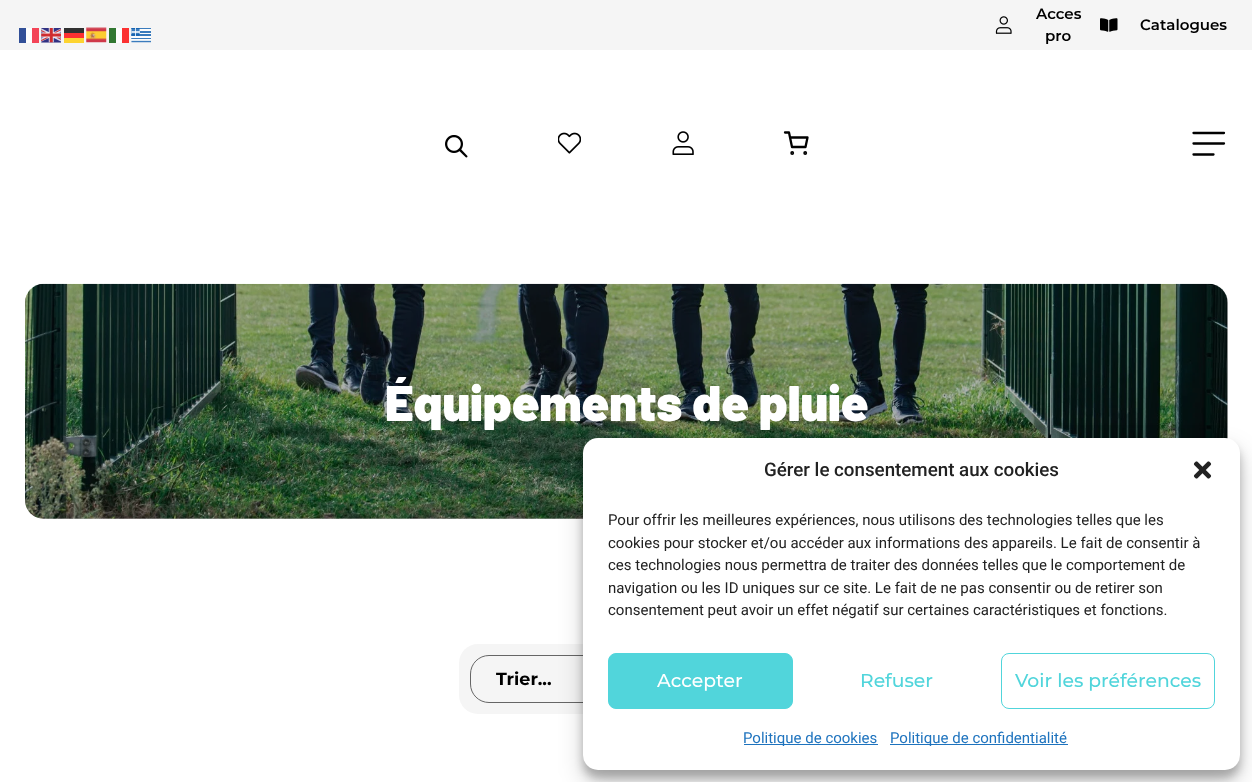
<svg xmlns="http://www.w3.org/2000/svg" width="1252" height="782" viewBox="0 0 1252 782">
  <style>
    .t1 { font: 600 15px Montserrat; fill: #000; }
    .t2 { font: 900 50px Barlow; fill: #fff; }
    .t3 { font: bold 17.5px Montserrat; fill: #000; }
    .t4 { font: 500 18.75px Roboto; fill: #222; }
    .t5 { font: 15px Roboto; fill: #222; }
    .t6 { font: 500 18.75px Montserrat; fill: #fff; }
    .t7 { font: 500 18.75px Montserrat; fill: #51d5db; }
    .t8 { font: 15px Roboto; fill: #1e73be; }
  </style>
  <rect width="100%" height="100%" fill="#fff"/>
  <rect x="0" y="0" width="1252" height="50" fill="#f5f5f5"/>
  <rect x="19" y="28" width="7" height="15" fill="#314f97"/>
  <rect x="26" y="28" width="6" height="15" fill="#fdfdfd"/>
  <rect x="32" y="28" width="7" height="15" fill="#f34457"/>
  <image x="41" y="28" width="20" height="15" href="images/1.png"/>
  <rect x="64" y="28" width="20" height="5" fill="#313131"/>
  <image x="86" y="27" width="21" height="16" href="images/2.png"/>
  <rect x="109" y="28" width="7" height="15" fill="#317731"/>
  <rect x="116" y="28" width="6" height="15" fill="#fdfdfd"/>
  <rect x="122" y="28" width="7" height="15" fill="#fb3131"/>
  <image x="131" y="28" width="20" height="15" href="images/3.png"/>
  <rect x="64" y="33" width="20" height="5" fill="#fd3131"/>
  <rect x="64" y="38" width="20" height="5" fill="#fdd431"/>
  <image x="995" y="16" width="17" height="18" href="images/4.png"/>
  <text x="1036" y="19" class="t1">Acces</text>
  <text x="1045" y="41" class="t1">pro</text>
  <image x="1100" y="18" width="18" height="14" href="images/5.png"/>
  <text x="1140" y="30" class="t1">Catalogues</text>
  <image x="445" y="135" width="23" height="23" href="images/6.png"/>
  <image x="558" y="132" width="23" height="22" href="images/7.png"/>
  <image x="672" y="131" width="22" height="24" href="images/8.png"/>
  <path d="M785 132.5H789L792 147H805.5L807.5 137.5H790.5" fill="none" stroke="#000" stroke-width="2.3" stroke-linecap="round" stroke-linejoin="round"/>
  <circle cx="792.2" cy="153" r="0.8" fill="none" stroke="#000" stroke-width="2.3"/>
  <circle cx="805.2" cy="153" r="0.8" fill="none" stroke="#000" stroke-width="2.3"/>
  <path d="M1193.5 154.5H1213.5M1193.5 143.5H1224M1193.5 133H1224" fill="none" stroke="#000" stroke-width="2.3" stroke-linecap="round"/>
  <image x="25" y="283" width="1203" height="236" href="images/9.png"/>
  <rect x="25" y="284" width="1203" height="235" rx="19" fill="#0000004d"/>
  <text x="385" y="421" class="t2">Équipements de pluie</text>
  <rect x="459" y="644" width="335" height="70" rx="19" fill="#f5f5f5"/>
  <rect x="470.5" y="655.5" width="312" height="47" rx="18.5" fill="none" stroke="#666"/>
  <text x="496" y="685" class="t3">Trier...</text>
  <rect x="583" y="445" width="657" height="333" rx="15" fill="#0000003b" filter="blur(4px)"/>
  <rect x="583" y="450" width="657" height="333" rx="15" fill="#00000030" filter="blur(12.5px)"/>
  <rect x="583" y="438" width="657" height="332" rx="15" fill="#fff"/>
  <text x="764" y="476" class="t4">Gérer le consentement aux cookies</text>
  <image x="1193" y="461" width="19" height="18" href="images/10.png"/>
  <text x="608" y="525" class="t5">Pour offrir les meilleures expériences, nous utilisons des technologies telles que les</text>
  <text x="608" y="548" class="t5">cookies pour stocker et/ou accéder aux informations des appareils. Le fait de consentir à</text>
  <text x="608" y="570" class="t5">ces technologies nous permettra de traiter des données telles que le comportement de</text>
  <text x="608" y="593" class="t5">navigation ou les ID uniques sur ce site. Le fait de ne pas consentir ou de retirer son</text>
  <text x="608" y="615" class="t5">consentement peut avoir un effet négatif sur certaines caractéristiques et fonctions.</text>
  <rect x="608.5" y="653.5" width="184" height="55" rx="7.5" fill="#51d5db" stroke="#51d5db"/>
  <text x="657" y="687" class="t6">Accepter</text>
  <text x="860" y="687" class="t7">Refuser</text>
  <rect x="1001.5" y="653.5" width="213" height="55" rx="7.5" fill="none" stroke="#51d5db"/>
  <text x="1015" y="687" class="t7">Voir les préférences</text>
  <rect x="744" y="744" width="134" height="1" fill="#1e73be"/>
  <text x="743" y="743" class="t8">Politique de cookies</text>
  <rect x="890" y="744" width="178" height="1" fill="#1e73be"/>
  <text x="890" y="743" class="t8">Politique de confidentialité</text>
</svg>
